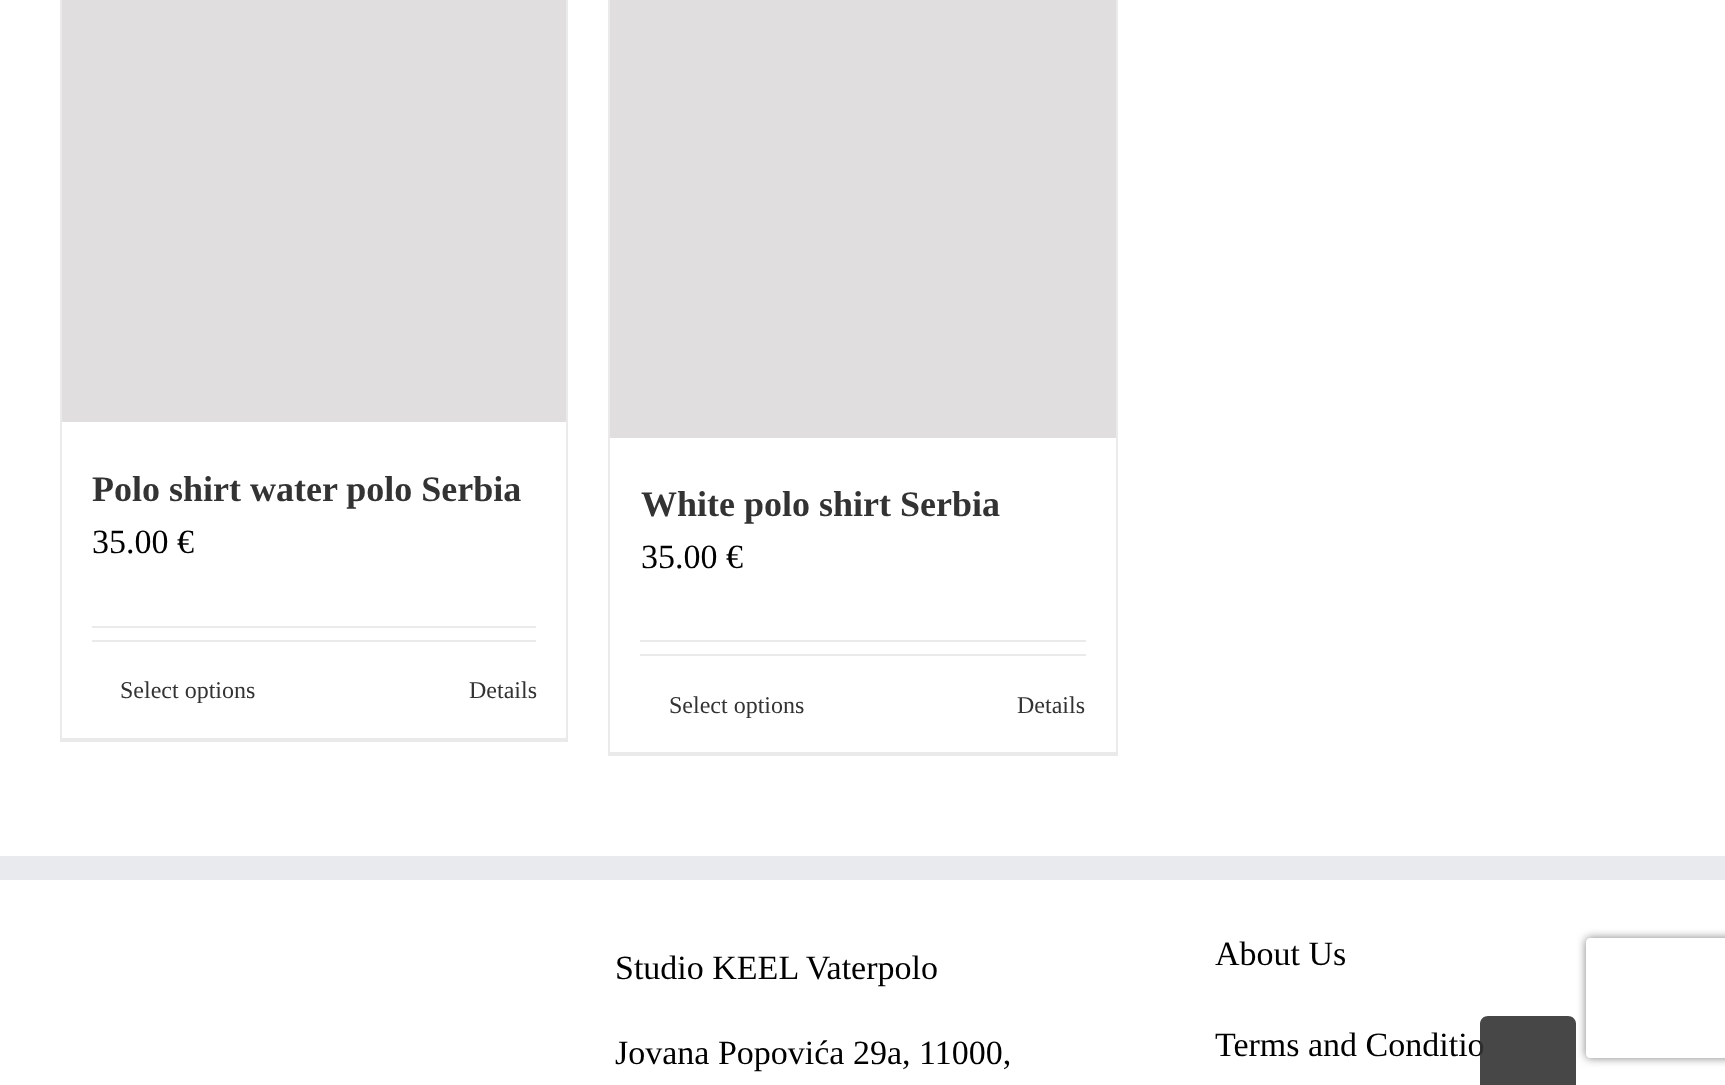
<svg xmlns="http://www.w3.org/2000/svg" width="1725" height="1085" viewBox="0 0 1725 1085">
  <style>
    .t1 { font: bold 36px Liberation Serif; fill: #333; }
    .t2 { font: 34px Liberation Serif; fill: #000; }
    .t3 { font: 24px Liberation Serif; fill: #333; }
  </style>
  <defs>
    <clipPath id="clip1"><path d="M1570 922H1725V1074H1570ZM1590 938H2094C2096 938 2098 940 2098 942V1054C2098 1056 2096 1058 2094 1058H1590C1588 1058 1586 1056 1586 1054V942C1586 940 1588 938 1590 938Z" clip-rule="evenodd"/></clipPath>
  </defs>
  <rect width="100%" height="100%" fill="#fff"/>
  <rect x="566" y="0" width="2" height="742" fill="#ebeaea"/>
  <rect x="60" y="738" width="508" height="4" fill="#ebeaea"/>
  <rect x="60" y="0" width="2" height="742" fill="#ebeaea"/>
  <rect x="62" y="0" width="504" height="422" fill="#e0dede"/>
  <text x="92" y="501" class="t1">Polo shirt water polo Serbia</text>
  <text x="92" y="553" class="t2">35.00 €</text>
  <rect x="92" y="626" width="444" height="2" fill="#ebeaea"/>
  <rect x="92" y="640" width="444" height="2" fill="#ebeaea"/>
  <text x="120" y="698" class="t3">Select options</text>
  <text x="469" y="698" class="t3">Details</text>
  <rect x="1116" y="0" width="2" height="756" fill="#ebeaea"/>
  <rect x="608" y="752" width="510" height="4" fill="#ebeaea"/>
  <rect x="608" y="0" width="2" height="756" fill="#ebeaea"/>
  <rect x="610" y="0" width="506" height="438" fill="#e0dede"/>
  <text x="641" y="516" class="t1">White polo shirt Serbia</text>
  <text x="641" y="568" class="t2">35.00 €</text>
  <rect x="640" y="640" width="446" height="2" fill="#ebeaea"/>
  <rect x="640" y="654" width="446" height="2" fill="#ebeaea"/>
  <text x="669" y="713" class="t3">Select options</text>
  <text x="1017" y="713" class="t3">Details</text>
  <rect x="0" y="856" width="1725" height="24" fill="#e9eaee"/>
  <text x="615" y="979" class="t2">Studio KEEL Vaterpolo</text>
  <text x="615" y="1064" class="t2">Jovana Popovića 29a, 11000,</text>
  <text x="1215" y="965" class="t2">About Us</text>
  <text x="1215" y="1056" class="t2">Terms and Conditio</text>
  <g clip-path="url(#clip1)">
    <rect x="1586" y="938" width="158" height="120" rx="4" fill="#808080" filter="blur(5px)"/>
  </g>
  <path d="M1488 1016H1568C1572.5 1016 1576 1019.5 1576 1024V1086H1480V1024C1480 1019.5 1483.5 1016 1488 1016Z" fill="#333333e6"/>
</svg>
